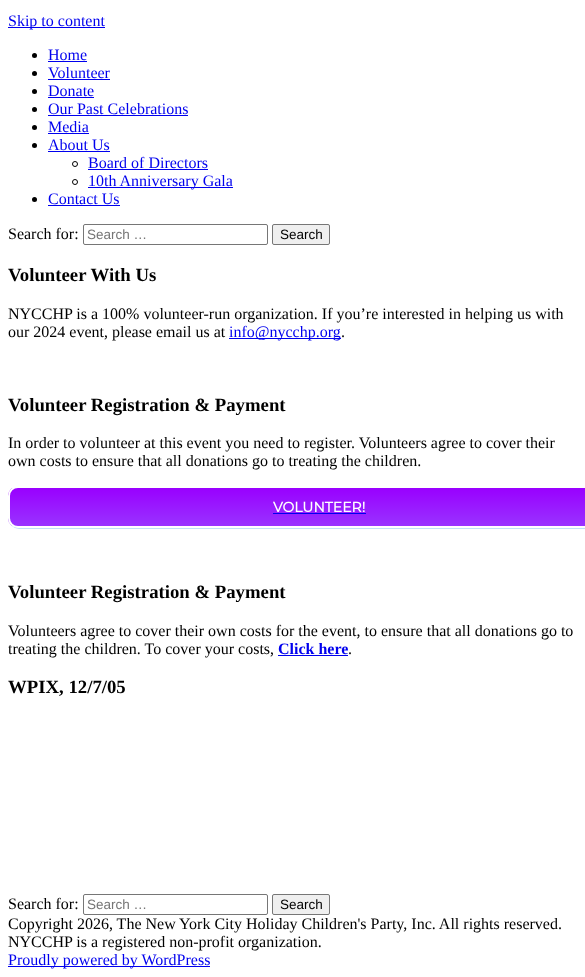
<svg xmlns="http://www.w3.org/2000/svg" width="585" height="977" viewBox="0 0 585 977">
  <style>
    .t1 { font: 16px Liberation Serif; fill: #00e; }
    .t2 { font: 16px Liberation Serif; fill: #000; }
    .t3 { font: 13.5px Liberation Sans; fill: #757575; }
    .t4 { font: 13.5px Liberation Sans; fill: #000; }
    .t5 { font: bold 18.75px Liberation Serif; fill: #000; }
    .t6 { font: bold 14px Montserrat; fill: #fff; }
    .t7 { font: bold 16px Liberation Serif; fill: #00e; }
  </style>
  <defs>
    <clipPath id="clip1"><rect x="8" y="486" width="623" height="42" rx="10"/></clipPath>
    <linearGradient id="g1" gradientUnits="userSpaceOnUse" x1="10" y1="488" x2="10" y2="526"><stop offset="0" stop-color="#90f"/><stop offset="1" stop-color="#93f"/></linearGradient>
  </defs>
  <rect width="100%" height="100%" fill="#fff"/>
  <rect x="8" y="27" width="97" height="1" fill="#00e"/>
  <text x="8" y="26" class="t1">Skip to content</text>
  <circle cx="34.5" cy="55.5" r="2.5" fill="#000"/>
  <text x="48" y="60" class="t1">Home</text>
  <rect x="48" y="61" width="39" height="1" fill="#00e"/>
  <circle cx="34.5" cy="73.5" r="2.5" fill="#000"/>
  <text x="48" y="78" class="t1">Volunteer</text>
  <rect x="48" y="79" width="62" height="1" fill="#00e"/>
  <circle cx="34.5" cy="91.5" r="2.5" fill="#000"/>
  <text x="48" y="96" class="t1">Donate</text>
  <rect x="48" y="97" width="46" height="1" fill="#00e"/>
  <circle cx="34.5" cy="109.5" r="2.5" fill="#000"/>
  <text x="48" y="114" class="t1">Our Past Celebrations</text>
  <rect x="48" y="115" width="140" height="1" fill="#00e"/>
  <circle cx="34.5" cy="127.5" r="2.5" fill="#000"/>
  <text x="48" y="132" class="t1">Media</text>
  <rect x="48" y="133" width="41" height="1" fill="#00e"/>
  <circle cx="34.5" cy="145.5" r="2.5" fill="#000"/>
  <text x="48" y="150" class="t1">About Us</text>
  <rect x="48" y="151" width="62" height="1" fill="#00e"/>
  <circle cx="75" cy="164" r="2.5" fill="none" stroke="#000"/>
  <text x="88" y="168" class="t1">Board of Directors</text>
  <rect x="88" y="169" width="120" height="1" fill="#00e"/>
  <circle cx="75" cy="182" r="2.5" fill="none" stroke="#000"/>
  <rect x="88" y="187" width="145" height="1" fill="#00e"/>
  <text x="88" y="186" class="t1">10th Anniversary Gala</text>
  <circle cx="34.5" cy="199.5" r="2.5" fill="#000"/>
  <text x="48" y="204" class="t1">Contact Us</text>
  <rect x="48" y="205" width="72" height="1" fill="#00e"/>
  <text x="8" y="239" class="t2">Search for:</text>
  <rect x="83.5" y="224.5" width="184" height="20" rx="1.5" fill="none" stroke="#767676"/>
  <text x="87" y="239" class="t3">Search …</text>
  <rect x="272.5" y="224.5" width="57" height="20" rx="1.5" fill="#efefef" stroke="#767676"/>
  <text x="280" y="239" class="t4">Search</text>
  <text x="8" y="281" class="t5">Volunteer With Us</text>
  <text x="8" y="319" class="t2">NYCCHP is a 100% volunteer-run organization. If you’re interested in helping us with</text>
  <text x="8" y="337" class="t2">our 2024 event, please email us at</text>
  <rect x="229" y="338" width="112" height="1" fill="#00e"/>
  <text x="229" y="337" class="t1">info@nycchp.org</text>
  <text x="341" y="337" class="t2">.</text>
  <text x="8" y="411" class="t5">Volunteer Registration &amp; Payment</text>
  <text x="8" y="448" class="t2">In order to volunteer at this event you need to register. Volunteers agree to cover their</text>
  <text x="8" y="466" class="t2">own costs to ensure that all donations go to treating the children.</text>
  <rect x="9" y="487" width="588" height="42" rx="10" fill="#bee2f9" filter="blur(0.5px)"/>
  <g clip-path="url(#clip1)">
    <rect x="8" y="488" width="577" height="38" fill="url(#g1)"/>
  </g>
  <rect x="9" y="487" width="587" height="40" rx="9" fill="none" stroke="#fff" stroke-width="2"/>
  <text x="273" y="512" class="t6">VOLUNTEER!</text>
  <rect x="273" y="513" width="93" height="1" fill="#00e"/>
  <text x="8" y="598" class="t5">Volunteer Registration &amp; Payment</text>
  <text x="8" y="636" class="t2">Volunteers agree to cover their own costs for the event, to ensure that all donations go to</text>
  <text x="8" y="654" class="t2">treating the children. To cover your costs,</text>
  <text x="278" y="654" class="t7">Click here</text>
  <rect x="278" y="655" width="70" height="1" fill="#00e"/>
  <text x="348" y="654" class="t2">.</text>
  <text x="8" y="693" class="t5">WPIX, 12/7/05</text>
  <text x="8" y="909" class="t2">Search for:</text>
  <rect x="83.5" y="894.5" width="184" height="20" rx="1.5" fill="none" stroke="#767676"/>
  <text x="87" y="909" class="t3">Search …</text>
  <rect x="272.5" y="894.5" width="57" height="20" rx="1.5" fill="#efefef" stroke="#767676"/>
  <text x="280" y="909" class="t4">Search</text>
  <text x="8" y="929" class="t2">Copyright 2026, The New York City Holiday Children's Party, Inc. All rights reserved.</text>
  <text x="8" y="947" class="t2">NYCCHP is a registered non-profit organization.</text>
  <rect x="8" y="966" width="202" height="1" fill="#00e"/>
  <text x="8" y="965" class="t1">Proudly powered by WordPress</text>
</svg>
